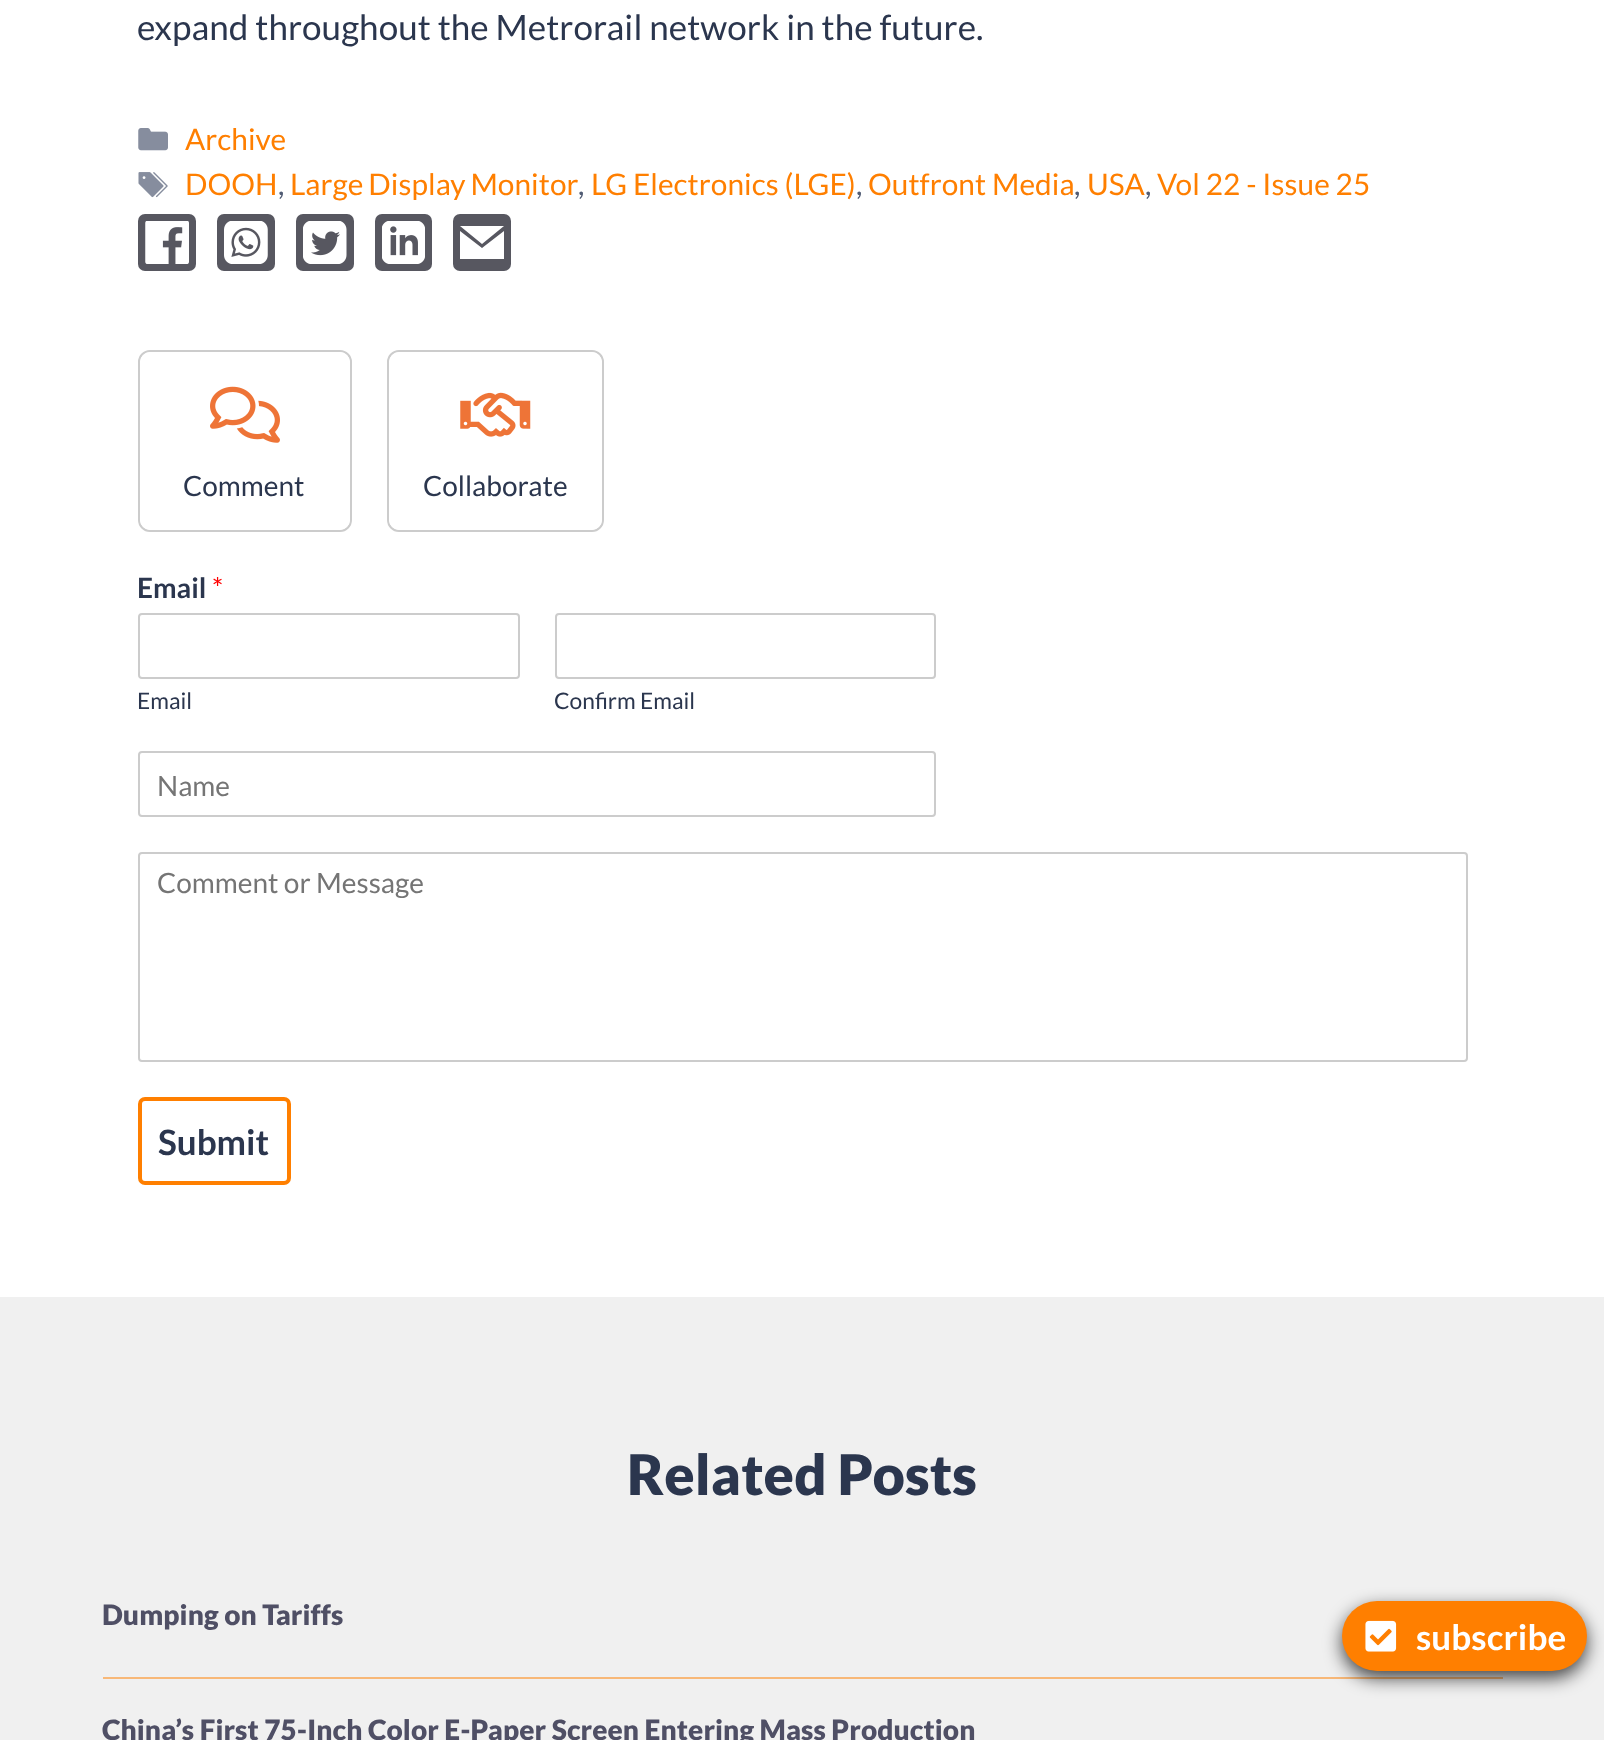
<svg xmlns="http://www.w3.org/2000/svg" width="1604" height="1740" viewBox="0 0 1604 1740">
  <style>
    .t1 { font: 35px Lato; letter-spacing: 0.07px; fill: #2b364e; }
    .t2 { font: 29.75px Lato; letter-spacing: 0.07px; fill: #ff7f00; }
    .t3 { font: 29.75px Lato; letter-spacing: 0.07px; fill: #515c74; }
    .t4 { font: 28px Lato; fill: #2b364e; }
    .t5 { font: bold 28px Lato; fill: #2b364e; }
    .t6 { font: 28px Lato; fill: #f00; }
    .t7 { font: 22.75px Lato; fill: #2b364e; }
    .t8 { font: 28px Lato; fill: #757575; }
    .t9 { font: bold 35px Lato; fill: #2b364e; }
    .t10 { font: bold 35px Lato; letter-spacing: 0.07px; fill: #fff; }
    .t11 { font: 900 56px Lato; letter-spacing: 0.07px; fill: #2b364e; }
    .t12 { font: 900 28px Lato; letter-spacing: 0.07px; fill: #4f4f65; }
  </style>
  <rect width="100%" height="100%" fill="#fff"/>
  <text x="137" y="40" class="t1">expand throughout the Metrorail network in the future.</text>
  <image x="138" y="128" width="30" height="23" href="images/1.png"/>
  <text x="185" y="150" class="t2">Archive</text>
  <image x="138" y="172" width="30" height="26" href="images/2.png"/>
  <text x="185" y="195" class="t2">DOOH</text>
  <text x="278" y="195" class="t3">,</text>
  <text x="290" y="195" word-spacing="-1" class="t2">Large Display Monitor</text>
  <text x="578" y="195" class="t3">,</text>
  <text x="591" y="195" class="t2">LG Electronics (LGE)</text>
  <text x="856" y="195" class="t3">,</text>
  <text x="868" y="195" class="t2">Outfront Media</text>
  <text x="1074" y="195" class="t3">,</text>
  <text x="1087" y="195" class="t2">USA</text>
  <text x="1145" y="195" class="t3">,</text>
  <text x="1157" y="195" class="t2">Vol 22 - Issue 25</text>
  <rect x="138" y="214" width="58" height="57" rx="7" fill="#575760"/>
  <image x="145" y="221" width="44" height="43" href="images/3.png"/>
  <rect x="217" y="214" width="58" height="57" rx="7" fill="#575760"/>
  <image x="224" y="221" width="44" height="43" href="images/4.png"/>
  <rect x="296" y="214" width="58" height="57" rx="7" fill="#575760"/>
  <image x="303" y="221" width="44" height="43" href="images/5.png"/>
  <rect x="375" y="214" width="57" height="57" rx="7" fill="#575760"/>
  <image x="382" y="221" width="43" height="43" href="images/6.png"/>
  <rect x="453" y="214" width="58" height="57" rx="7" fill="#575760"/>
  <path d="M482 244L460 226H504ZM482 248L460 231V259H504V231Z" fill="#fff"/>
  <rect x="139" y="351" width="212" height="180" rx="11" fill="none" stroke="#ccc" stroke-width="2"/>
  <rect x="140" y="352" width="210" height="178" rx="11" fill="#fff"/>
  <image x="210" y="386" width="70" height="57" href="images/7.png"/>
  <text x="183" y="496" class="t4">Comment</text>
  <rect x="388" y="351" width="215" height="180" rx="11" fill="none" stroke="#ccc" stroke-width="2"/>
  <rect x="389" y="352" width="213" height="178" rx="11" fill="#fff"/>
  <image x="460" y="392" width="71" height="45" href="images/8.png"/>
  <text x="423" y="496" class="t4">Collaborate</text>
  <text x="137" y="598" class="t5">Email</text>
  <text x="212" y="598" class="t6">*</text>
  <rect x="139" y="614" width="380" height="64" rx="3" fill="none" stroke="#ccc" stroke-width="2"/>
  <text x="137" y="709" class="t7">Email</text>
  <rect x="556" y="614" width="379" height="64" rx="3" fill="none" stroke="#ccc" stroke-width="2"/>
  <text x="554" y="709" class="t7">Confirm Email</text>
  <rect x="139" y="752" width="796" height="64" rx="3" fill="none" stroke="#ccc" stroke-width="2"/>
  <text x="157" y="796" class="t8">Name</text>
  <rect x="139" y="853" width="1328" height="208" rx="3" fill="none" stroke="#ccc" stroke-width="2"/>
  <text x="157" y="893" class="t8">Comment or Message</text>
  <rect x="140" y="1099" width="149" height="84" rx="5" fill="none" stroke="#ff7f00" stroke-width="4"/>
  <text x="158" y="1155" class="t9">Submit</text>
  <rect x="0" y="1297" width="1604" height="443" fill="#f0f0f0"/>
  <rect x="103" y="1677" width="1400" height="2" fill="#f8b878"/>
  <rect x="1342" y="1608" width="245" height="70" rx="35" fill="#000000b8" filter="blur(9px)"/>
  <rect x="1342" y="1601" width="245" height="70" rx="35" fill="#ff7f00"/>
  <image x="1365" y="1620" width="32" height="32" href="images/9.png"/>
  <text x="1416" y="1650" class="t10">subscribe</text>
  <text x="627" y="1495" class="t11">Related Posts</text>
  <text x="102" y="1625" class="t12">Dumping on Tariffs</text>
  <text x="102" y="1740" class="t12">China’s First 75-Inch Color E-Paper Screen Entering Mass Production</text>
</svg>
